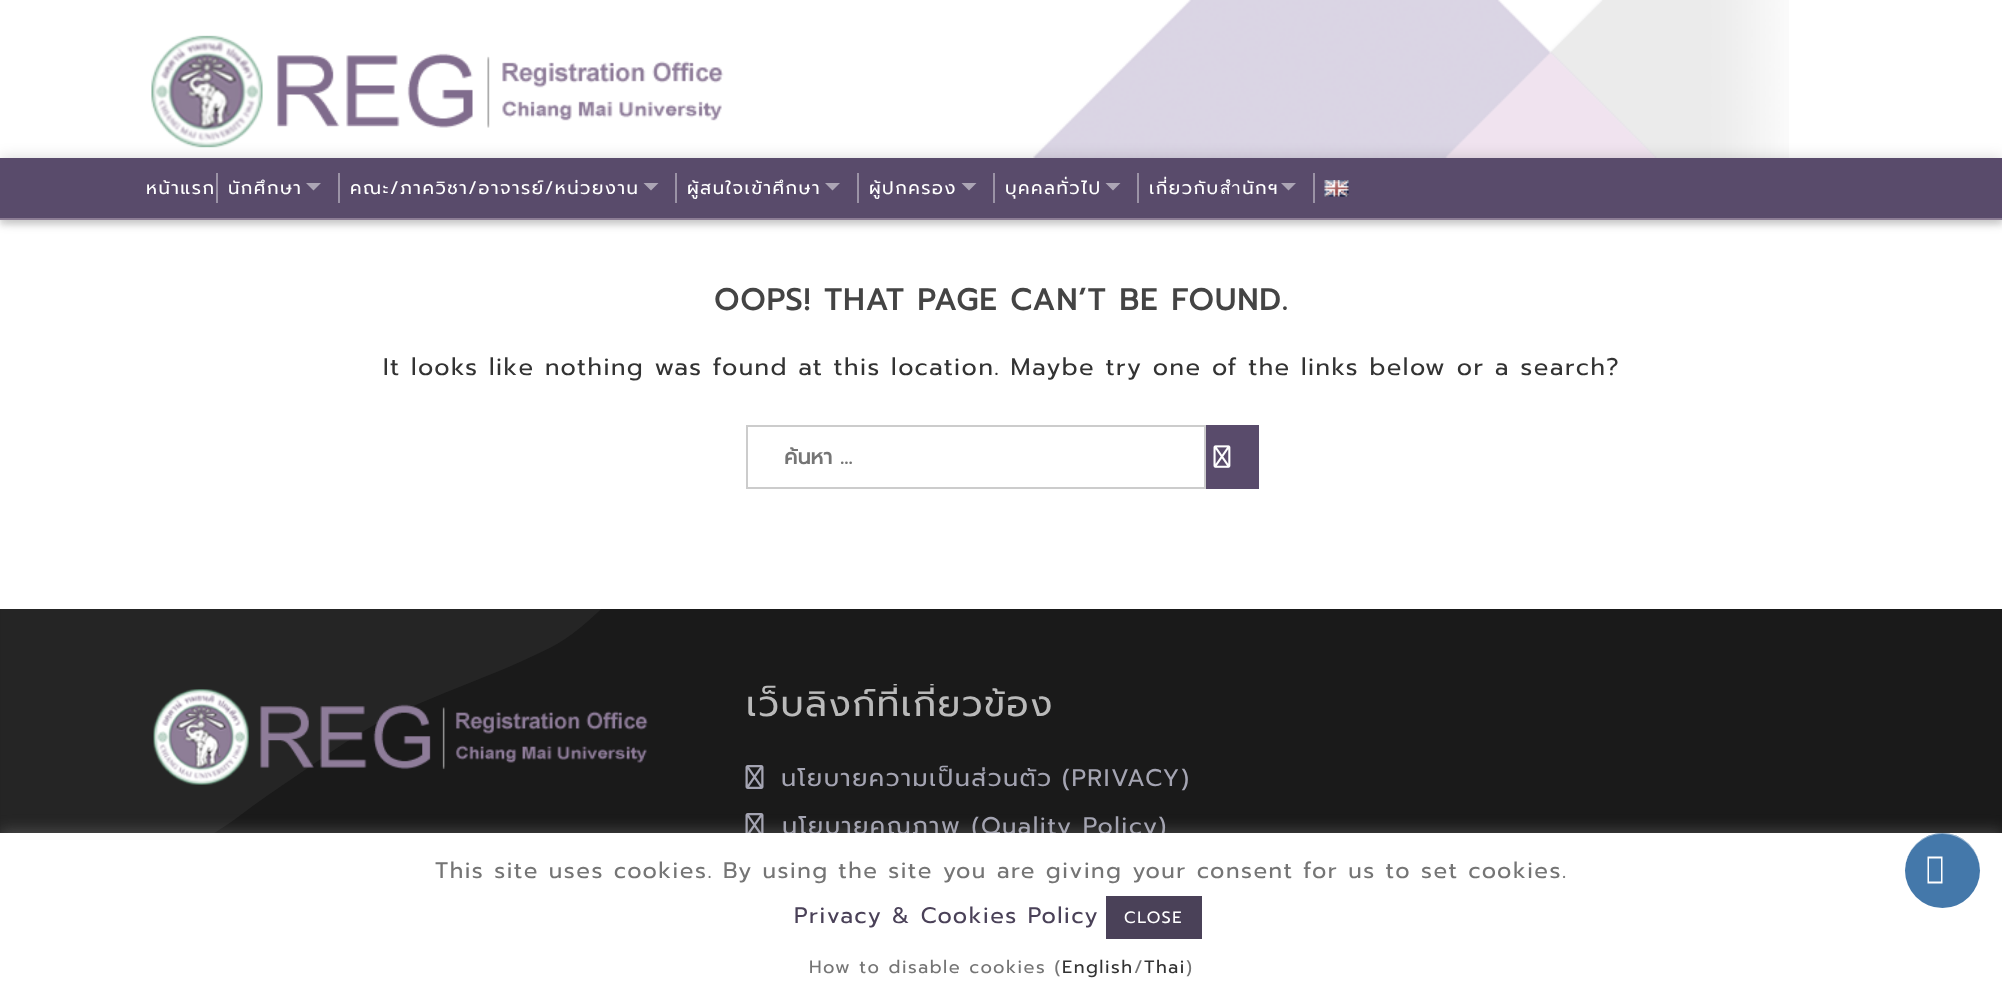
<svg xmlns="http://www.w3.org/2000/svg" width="2002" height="1001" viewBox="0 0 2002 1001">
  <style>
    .t1 { font: 18px Prompt; letter-spacing: 1.5px; fill: #fff; }
    .t2 { font: bold 30px Prompt; letter-spacing: 1.5px; fill: #444; }
    .t3 { font: 24px Prompt; letter-spacing: 1.5px; fill: #333; }
    .t4 { font: bold 21px Prompt; fill: #757575; }
    .t5 { font: 36px Prompt; letter-spacing: 1.5px; fill: #bababa; }
    .t6 { font: 24px Prompt; letter-spacing: 1.5px; fill: #a4a4b2; }
    .t7 { font: 22.5px Prompt; letter-spacing: 1.5px; fill: #757575; }
    .t8 { font: 22.5px Prompt; letter-spacing: 1.5px; fill: #4a4158; }
    .t9 { font: 16.5px Prompt; letter-spacing: 1.5px; fill: #fff; }
    .t10 { font: 18px Prompt; letter-spacing: 1.5px; fill: #757575; }
    .t11 { font: 18px Prompt; letter-spacing: 1.5px; fill: #333; }
  </style>
  <defs>
    <clipPath id="clip1"><rect x="785" y="441" width="313" height="32"/></clipPath>
    <clipPath id="clip2"><rect x="102" y="684" width="1800" height="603"/></clipPath>
  </defs>
  <rect width="100%" height="100%" fill="#fff"/>
  <image x="1033" y="0" width="756" height="158" href="images/1.png"/>
  <image x="151" y="35" width="573" height="113" href="images/2.png"/>
  <rect x="0" y="164" width="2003" height="61" fill="#00000026" filter="blur(3px)"/>
  <rect x="0" y="158" width="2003" height="61" fill="#00000026" filter="blur(7.5px)"/>
  <rect x="0" y="158" width="2002" height="60" fill="#594b6b"/>
  <rect x="0" y="218" width="2002" height="2" fill="#8c7d95"/>
  <rect x="216" y="173" width="2" height="30" fill="#9b93a6"/>
  <text x="146" y="194" class="t1">หน้าแรก</text>
  <rect x="338" y="173" width="2" height="30" fill="#9b93a6"/>
  <text x="228" y="194" class="t1">นักศึกษา</text>
  <path d="M306 183H321L313.5 190.5Z" fill="#aca5b5"/>
  <rect x="675" y="173" width="2" height="30" fill="#9b93a6"/>
  <text x="350" y="194" class="t1">คณะ/ภาควิชา/อาจารย์/หน่วยงาน</text>
  <path d="M643.5 183H658.5L651 190.5Z" fill="#aca5b5"/>
  <rect x="857" y="173" width="2" height="30" fill="#9b93a6"/>
  <text x="687" y="194" class="t1">ผู้สนใจเข้าศึกษา</text>
  <path d="M825 183H840L832.5 190.5Z" fill="#aca5b5"/>
  <rect x="993" y="173" width="2" height="30" fill="#9b93a6"/>
  <text x="869" y="194" class="t1">ผู้ปกครอง</text>
  <path d="M961.5 183H976.5L969 190.5Z" fill="#aca5b5"/>
  <rect x="1137" y="173" width="2" height="30" fill="#9b93a6"/>
  <text x="1005" y="194" class="t1">บุคคลทั่วไป</text>
  <path d="M1105.5 183H1120.5L1113 190.5Z" fill="#aca5b5"/>
  <rect x="1313" y="173" width="2" height="30" fill="#9b93a6"/>
  <text x="1149" y="194" class="t1">เกี่ยวกับสำนักฯ</text>
  <path d="M1281 183H1296L1288.5 190.5Z" fill="#aca5b5"/>
  <image x="1324" y="180" width="25" height="17" href="images/3.png"/>
  <text x="714" y="310" class="t2">OOPS! THAT PAGE CAN’T BE FOUND.</text>
  <text x="383" y="375" class="t3">It looks like nothing was found at this location. Maybe try one of the links below or a search?</text>
  <rect x="1206" y="425" width="53" height="64" fill="#594b6b"/>
  <rect x="747" y="426" width="458" height="62" fill="none" stroke="#ccc" stroke-width="2"/>
  <g clip-path="url(#clip1)">
    <text x="784" y="464" class="t4">ค้นหา …</text>
  </g>
  <image x="1213" y="445" width="18" height="23" href="images/4.png"/>
  <rect x="0" y="609" width="2002" height="224" fill="#1a1a1a"/>
  <image x="0" y="609" width="601" height="224" href="images/5.png"/>
  <image x="153" y="689" width="495" height="96" href="images/6.png"/>
  <g clip-path="url(#clip2)">
    <text x="746" y="716" class="t5">เว็บลิงก์ที่เกี่ยวข้อง</text>
  </g>
  <image x="745" y="765" width="19" height="24" href="images/7.png"/>
  <text x="781" y="786" word-spacing="-1" class="t6">นโยบายความเป็นส่วนตัว (PRIVACY)</text>
  <image x="745" y="813" width="19" height="20" href="images/8.png"/>
  <text x="782" y="834" class="t6">นโยบายคุณภาพ (Quality Policy)</text>
  <rect x="0" y="831" width="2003" height="170" fill="#acabab4d" filter="blur(7.5px)"/>
  <rect x="0" y="833" width="2002" height="168" fill="#fff"/>
  <text x="435" y="878" class="t7">This site uses cookies. By using the site you are giving your consent for us to set cookies.</text>
  <text x="794" y="923" class="t8">Privacy &amp; Cookies Policy</text>
  <rect x="1106" y="896" width="96" height="43" fill="#4a4158"/>
  <text x="1124" y="923" class="t9">CLOSE</text>
  <text x="809" y="973" class="t10">How to disable cookies (</text>
  <text x="1062" y="973" class="t11">English</text>
  <text x="1134" y="973" class="t10">/</text>
  <text x="1144" y="973" class="t11">Thai</text>
  <text x="1186" y="973" class="t10">)</text>
  <circle cx="1942.5" cy="870.5" r="37.5" fill="#4478aa"/>
  <path d="M1942 834C1963 834 1980 851 1980 871C1980 864 1978 856 1974 850C1953 819 1904 834 1905 871C1905 851 1922 834 1942 834Z" fill="#ffffff80"/>
  <path d="M1927.5 883.5V856.5H1942.5V883.5ZM1929 881.5H1941V858.5H1929Z" fill="#fff"/>
</svg>
